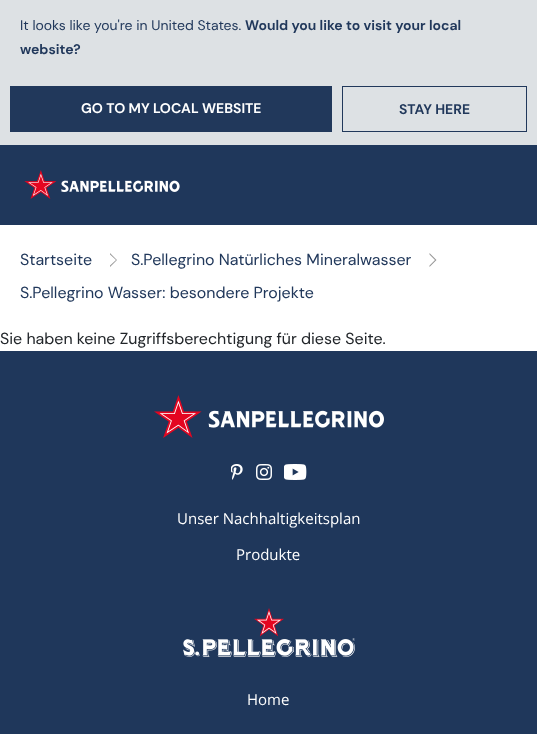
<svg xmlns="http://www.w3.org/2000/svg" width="537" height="734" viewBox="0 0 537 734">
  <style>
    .t1 { font: 14px DM Sans; fill: #21385b; }
    .t2 { font: bold 14px DM Sans; fill: #21385b; }
    .t3 { font: bold 14px DM Sans; fill: #fff; }
    .t4 { font: 16px DM Sans; fill: #21385b; }
    .t5 { font: 16px DM Sans; fill: #212529; }
    .t6 { font: 15px Open Sans; fill: #fff; }
  </style>
  <rect width="100%" height="100%" fill="#fff"/>
  <rect x="0" y="0" width="537" height="145" fill="#dde1e4"/>
  <text x="20" y="30" class="t1">It looks like you're in United States.</text>
  <text x="245" y="30" class="t2">Would you like to visit your local</text>
  <text x="20" y="54" class="t2">website?</text>
  <rect x="10" y="86" width="322" height="46" fill="#21385b"/>
  <text x="81" y="113" class="t3">GO TO MY LOCAL WEBSITE</text>
  <rect x="342.5" y="86.5" width="184" height="45" fill="none" stroke="#21385b"/>
  <text x="399" y="114" class="t2">STAY HERE</text>
  <rect x="0" y="145" width="537" height="80" fill="#1f375b"/>
  <image x="24" y="170" width="156" height="29" href="images/1.png"/>
  <text x="20" y="265" class="t4">Startseite</text>
  <path d="M110 253L117 260H116L110 254.5ZM117 260L110 267V265.5L116 260Z" fill="#999"/>
  <text x="131" y="265" class="t4">S.Pellegrino Natürliches Mineralwasser</text>
  <path d="M429.5 253L436.5 260H435L429.5 254.5ZM436.5 260L429.5 267V265.5L435 260Z" fill="#999"/>
  <text x="20" y="298" class="t4">S.Pellegrino Wasser: besondere Projekte</text>
  <text x="0" y="344" class="t5">Sie haben keine Zugriffsberechtigung für diese Seite.</text>
  <rect x="0" y="351" width="537" height="383" fill="#1f375b"/>
  <image x="154" y="395" width="230" height="43" href="images/2.png"/>
  <image x="231" y="464" width="12" height="16" href="images/3.png"/>
  <image x="256" y="464" width="16" height="16" href="images/4.png"/>
  <image x="284" y="464" width="23" height="16" href="images/5.png"/>
  <text x="177" y="524" class="t6">Unser Nachhaltigkeitsplan</text>
  <text x="236" y="560" class="t6">Produkte</text>
  <image x="183" y="608" width="172" height="49" href="images/6.png"/>
  <text x="247" y="705" class="t6">Home</text>
</svg>
